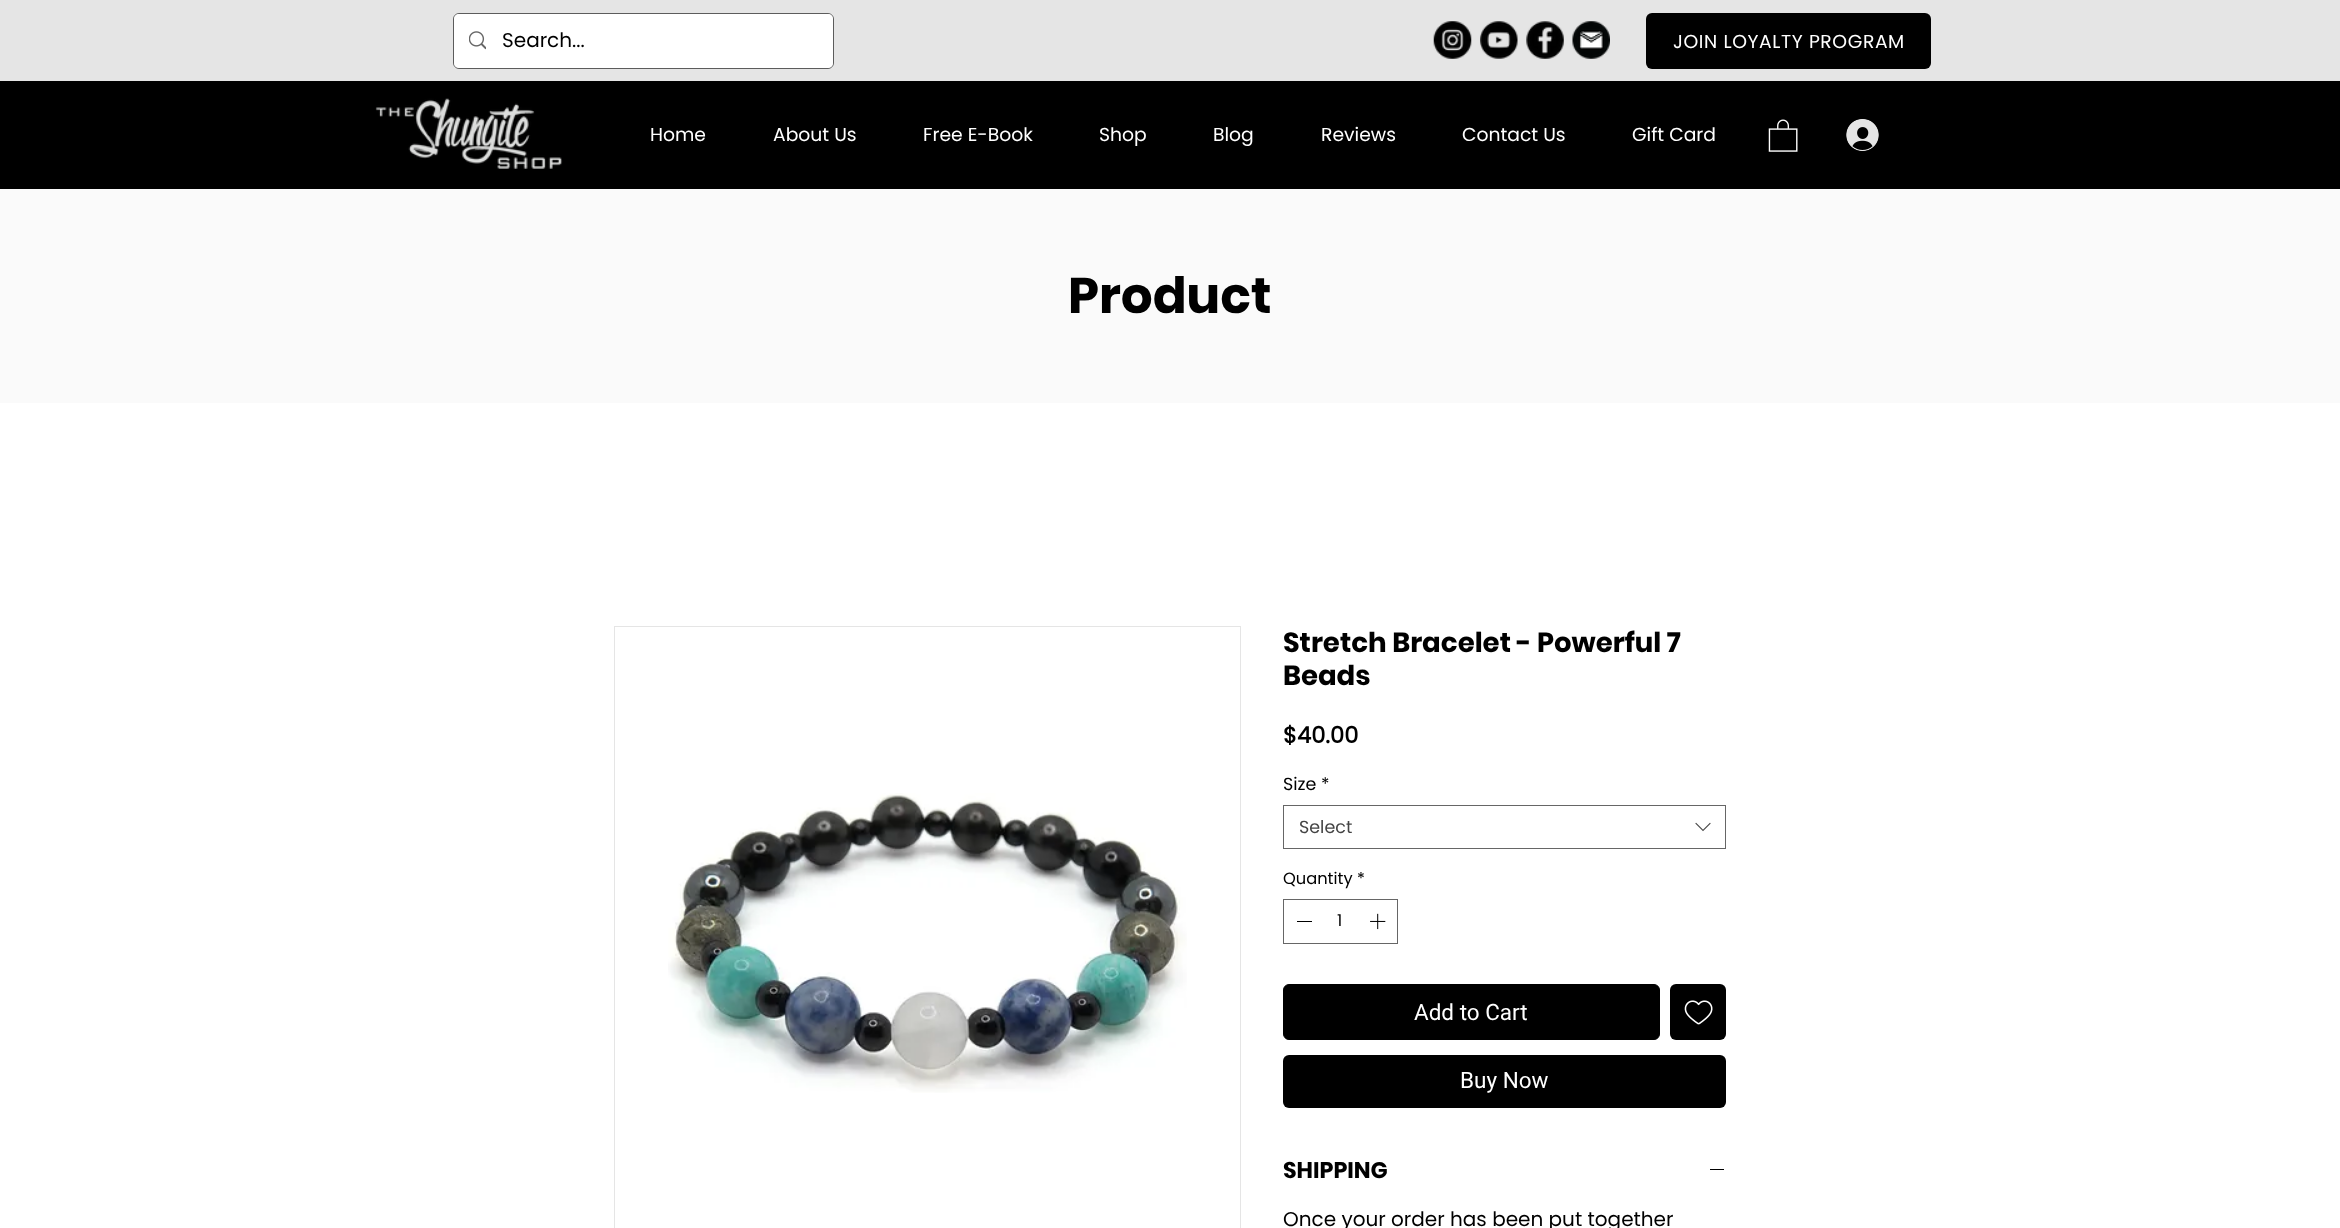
<svg xmlns="http://www.w3.org/2000/svg" width="2340" height="1228" viewBox="0 0 2340 1228">
  <style>
    .t1 { font: 20px Poppins; fill: #000; }
    .t2 { font: 18.75px Poppins; letter-spacing: 0.6px; fill: #fff; }
    .t3 { font: 18.75px Poppins; fill: #fff; }
    .t4 { font: bold 50px Poppins; fill: #000; }
    .t5 { font: bold 27.5px Poppins; fill: #000; }
    .t6 { font: bold 22.5px 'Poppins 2'; fill: #000; }
    .t7 { font: 17.5px Poppins; fill: #000; }
    .t8 { font: 17.5px Poppins; fill: #444; }
    .t9 { font: 16.25px Poppins; fill: #000; }
    .t10 { font: 22.5px Roboto; fill: #fff; }
    .t11 { font: bold 22.5px Poppins; fill: #000; }
  </style>
  <rect width="100%" height="100%" fill="#fff"/>
  <rect x="0" y="0" width="2340" height="81" fill="#e5e5e5"/>
  <rect x="453.5" y="13.5" width="380" height="55" rx="5.5" fill="none" stroke="#5c5c5c"/>
  <rect x="454" y="14" width="379" height="54" rx="5" fill="#fff"/>
  <image x="469" y="31" width="17" height="19" href="images/1.png"/>
  <text x="502" y="47" class="t1">Search...</text>
  <image x="1433" y="21" width="39" height="38" href="images/2.png"/>
  <image x="1480" y="21" width="38" height="38" href="images/3.png"/>
  <image x="1526" y="21" width="38" height="38" href="images/4.png"/>
  <image x="1572" y="21" width="38" height="38" href="images/5.png"/>
  <rect x="1646" y="13" width="285" height="56" rx="6" fill="#000"/>
  <text x="1673" y="48" class="t2">JOIN LOYALTY PROGRAM</text>
  <rect x="0" y="81" width="2340" height="108" fill="#000"/>
  <image x="375" y="98" width="188" height="71" href="images/6.png"/>
  <text x="650" y="141" class="t3">Home</text>
  <text x="773" y="141" class="t3">About Us</text>
  <text x="923" y="141" class="t3">Free E-Book</text>
  <text x="1099" y="141" class="t3">Shop</text>
  <text x="1213" y="141" class="t3">Blog</text>
  <text x="1321" y="141" class="t3">Reviews</text>
  <text x="1462" y="141" class="t3">Contact Us</text>
  <text x="1632" y="141" class="t3">Gift Card</text>
  <image x="1768" y="119" width="30" height="33" href="images/7.png"/>
  <image x="1846" y="119" width="33" height="32" href="images/8.png"/>
  <rect x="0" y="189" width="2340" height="214" fill="#fafafa"/>
  <text x="1068" y="313" class="t4">Product</text>
  <rect x="614.5" y="626.5" width="626" height="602" fill="none" stroke="#e5e5e5"/>
  <image x="668" y="793" width="519" height="300" href="images/9.png"/>
  <text x="1283" y="652" class="t5">Stretch Bracelet - Powerful 7</text>
  <text x="1283" y="685" class="t5">Beads</text>
  <text x="1283" y="743" class="t6">$40.00</text>
  <text x="1283" y="790" class="t7">Size</text>
  <text x="1321" y="790" class="t7">*</text>
  <rect x="1283.5" y="805.5" width="442" height="43" fill="none" stroke="#666"/>
  <text x="1299" y="833" class="t8">Select</text>
  <image x="1695" y="822" width="16" height="10" href="images/10.png"/>
  <text x="1283" y="884" class="t9">Quantity</text>
  <text x="1357" y="884" class="t9">*</text>
  <rect x="1283.5" y="899.5" width="114" height="44" fill="none" stroke="#666"/>
  <rect x="1297" y="921" width="15" height="1" fill="#000"/>
  <text x="1337" y="926" class="t9">1</text>
  <image x="1370" y="913" width="16" height="17" href="images/11.png"/>
  <rect x="1283.5" y="984.5" width="376" height="55" rx="5.5" fill="#000" stroke="#000"/>
  <text x="1414" y="1020" class="t10">Add to Cart</text>
  <rect x="1670" y="984" width="56" height="56" rx="6" fill="#000"/>
  <image x="1684" y="1000" width="29" height="25" href="images/12.png"/>
  <rect x="1283" y="1055" width="443" height="53" rx="6" fill="#000"/>
  <text x="1460" y="1088" class="t10">Buy Now</text>
  <text x="1283" y="1178" class="t11">SHIPPING</text>
  <rect x="1710" y="1169" width="14" height="1" fill="#000"/>
  <text x="1283" y="1226" class="t1">Once your order has been put together</text>
</svg>
